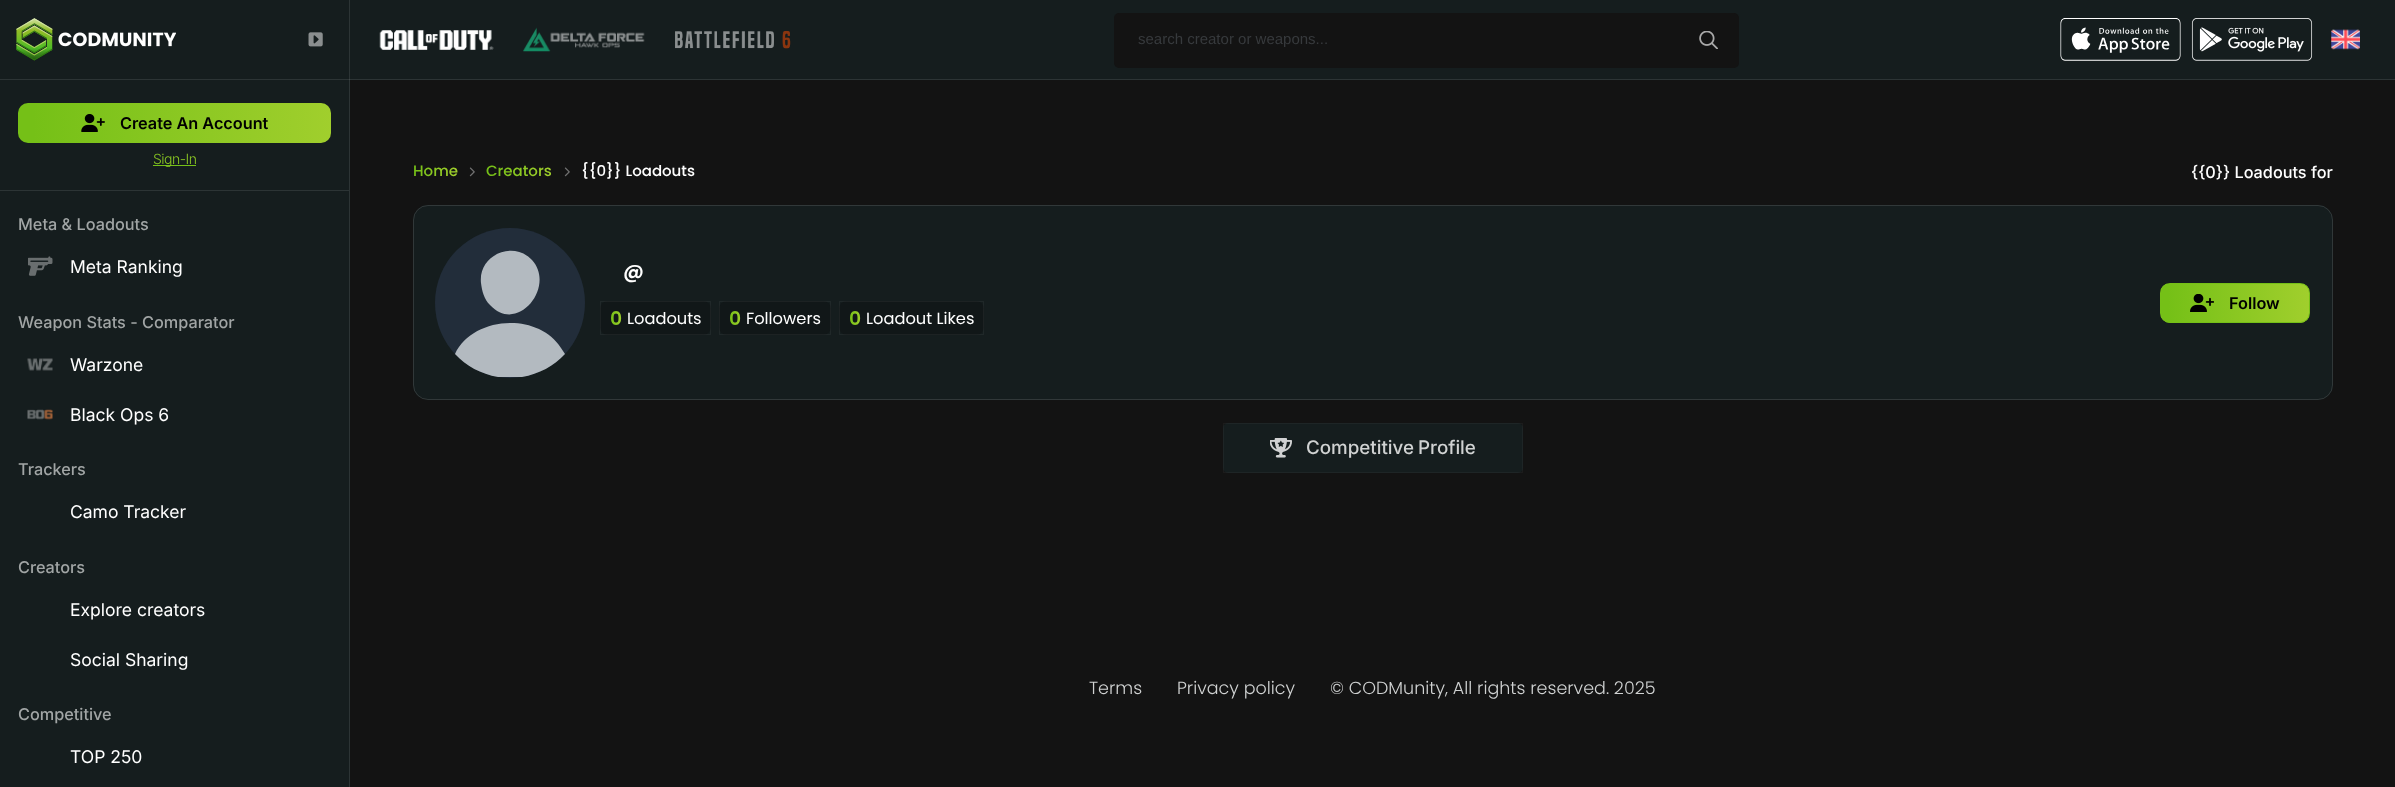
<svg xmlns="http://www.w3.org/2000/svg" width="2395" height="787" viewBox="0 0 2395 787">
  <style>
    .t1 { font: 15px Liberation Sans; fill: #373a3d; }
    .t2 { font: 600 16.25px Inter; fill: #000; }
    .t3 { font: 300 14px Inter; letter-spacing: -0.5px; fill: url(#g1); }
    .t4 { font: 500 16.25px Inter; fill: #a1a5a5; }
    .t5 { font: 17.5px Inter; fill: #fff; }
    .t6 { font: 500 15px Poppins; fill: url(#g3); }
    .t7 { font: 500 15px Poppins; fill: url(#g4); }
    .t8 { font: 500 15px Poppins; fill: #fff; }
    .t9 { font: 500 16.25px Inter; fill: #fff; }
    .t10 { font: 600 20px Poppins; fill: #fff; }
    .t11 { font: 600 18.75px Poppins; fill: url(#g5); }
    .t12 { font: 16.25px Poppins; fill: #fff; }
    .t13 { font: 600 18.75px Poppins; fill: url(#g6); }
    .t14 { font: 600 18.75px Poppins; fill: url(#g7); }
    .t15 { font: 500 18.75px Inter; fill: #d0d2d2; }
    .t16 { font: 300 17.5px Poppins; fill: #d0d2d2; }
  </style>
  <defs>
    <linearGradient id="g1" gradientUnits="userSpaceOnUse" x1="17" y1="161" x2="543" y2="152"><stop offset="0.03" stop-color="#75c017"/><stop offset="0.03" stop-color="#75c017"/><stop offset="0.21" stop-color="#83c51e"/><stop offset="1" stop-color="#bfd93c"/></linearGradient>
    <linearGradient id="g2" gradientUnits="userSpaceOnUse" x1="17" y1="125" x2="543" y2="116"><stop offset="0.03" stop-color="#75c017"/><stop offset="0.03" stop-color="#75c017"/><stop offset="0.21" stop-color="#83c51e"/><stop offset="1" stop-color="#bfd93c"/></linearGradient>
    <clipPath id="clip1"><rect x="18" y="311" width="313" height="20"/></clipPath>
    <linearGradient id="g3" gradientUnits="userSpaceOnUse" x1="412" y1="172" x2="488" y2="170"><stop offset="0.03" stop-color="#75c017"/><stop offset="0.03" stop-color="#75c017"/><stop offset="0.21" stop-color="#83c51e"/><stop offset="1" stop-color="#bfd93c"/></linearGradient>
    <linearGradient id="g4" gradientUnits="userSpaceOnUse" x1="486" y1="172" x2="597" y2="170"><stop offset="0.03" stop-color="#75c017"/><stop offset="0.03" stop-color="#75c017"/><stop offset="0.21" stop-color="#83c51e"/><stop offset="1" stop-color="#bfd93c"/></linearGradient>
    <linearGradient id="g5" gradientUnits="userSpaceOnUse" x1="610" y1="318" x2="631" y2="318"><stop offset="0.03" stop-color="#75c017"/><stop offset="0.03" stop-color="#75c017"/><stop offset="0.21" stop-color="#83c51e"/><stop offset="1" stop-color="#bfd93c"/></linearGradient>
    <linearGradient id="g6" gradientUnits="userSpaceOnUse" x1="729" y1="318" x2="750" y2="318"><stop offset="0.03" stop-color="#75c017"/><stop offset="0.03" stop-color="#75c017"/><stop offset="0.21" stop-color="#83c51e"/><stop offset="1" stop-color="#bfd93c"/></linearGradient>
    <linearGradient id="g7" gradientUnits="userSpaceOnUse" x1="849" y1="318" x2="869" y2="318"><stop offset="0.03" stop-color="#75c017"/><stop offset="0.03" stop-color="#75c017"/><stop offset="0.21" stop-color="#83c51e"/><stop offset="1" stop-color="#bfd93c"/></linearGradient>
    <clipPath id="clip2"><rect x="2160" y="283" width="150" height="40" rx="10"/></clipPath>
    <linearGradient id="g8" gradientUnits="userSpaceOnUse" x1="2161" y1="304" x2="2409" y2="299"><stop offset="0.03" stop-color="#75c017"/><stop offset="0.03" stop-color="#75c017"/><stop offset="0.21" stop-color="#83c51e"/><stop offset="1" stop-color="#bfd93c"/></linearGradient>
    <linearGradient id="g9" gradientUnits="userSpaceOnUse" x1="2161" y1="341" x2="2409" y2="337"><stop offset="0.03" stop-color="#75c017"/><stop offset="0.03" stop-color="#75c017"/><stop offset="0.21" stop-color="#83c51e"/><stop offset="1" stop-color="#bfd93c"/></linearGradient>
  </defs>
  <rect width="100%" height="100%" fill="#131313"/>
  <rect x="0" y="0" width="2395" height="79" fill="#151d1e"/>
  <rect x="349" y="0" width="1" height="80" fill="#2c3435"/>
  <rect x="0" y="79" width="2395" height="1" fill="#2c3435"/>
  <rect x="349" y="79" width="1" height="1" fill="#414849"/>
  <image x="16" y="18" width="160" height="43" href="images/1.png"/>
  <image x="308" y="32" width="15" height="15" href="images/2.png"/>
  <image x="379" y="30" width="115" height="20" href="images/3.png"/>
  <image x="523" y="27" width="122" height="25" href="images/4.png"/>
  <image x="675" y="30" width="116" height="19" href="images/5.png"/>
  <rect x="1114" y="13" width="625" height="55" rx="5" fill="#131313"/>
  <text x="1138" y="44" class="t1">search creator or weapons...</text>
  <image x="1699" y="31" width="19" height="18" href="images/6.png"/>
  <image x="2060" y="18" width="121" height="43" href="images/7.png"/>
  <image x="2191" y="18" width="122" height="43" href="images/8.png"/>
  <image x="2331" y="29" width="29" height="21" href="images/9.png"/>
  <rect x="0" y="80" width="349" height="707" fill="#151d1e"/>
  <rect x="349" y="80" width="1" height="707" fill="#2c3435"/>
  <rect x="18" y="103" width="313" height="40" rx="10" fill="url(#g2)"/>
  <image x="81" y="114" width="24" height="18" href="images/10.png"/>
  <text x="120" y="129" class="t2">Create An Account</text>
  <rect x="153" y="165" width="43" height="1" fill="#75c017"/>
  <text x="153" y="164" class="t3">Sign-In</text>
  <rect x="0" y="190" width="349" height="1" fill="#2c3435"/>
  <text x="18" y="230" class="t4">Meta &amp; Loadouts</text>
  <image x="28" y="256" width="25" height="20" href="images/11.png"/>
  <text x="70" y="273" class="t5">Meta Ranking</text>
  <g clip-path="url(#clip1)">
    <text x="18" y="328" class="t4">Weapon Stats - Comparator</text>
  </g>
  <image x="27" y="358" width="26" height="13" href="images/12.png"/>
  <text x="70" y="371" class="t5">Warzone</text>
  <image x="27" y="409" width="26" height="11" href="images/13.png"/>
  <text x="70" y="421" class="t5">Black Ops 6</text>
  <text x="18" y="475" class="t4">Trackers</text>
  <text x="70" y="518" class="t5">Camo Tracker</text>
  <text x="18" y="573" class="t4">Creators</text>
  <text x="70" y="616" class="t5">Explore creators</text>
  <text x="70" y="666" class="t5">Social Sharing</text>
  <text x="18" y="720" class="t4">Competitive</text>
  <text x="70" y="763" class="t5">TOP 250</text>
  <text x="413" y="176" class="t6">Home</text>
  <image x="469" y="167" width="6" height="10" href="images/14.png"/>
  <text x="486" y="176" class="t7">Creators</text>
  <image x="564" y="167" width="6" height="10" href="images/14.png"/>
  <text x="581" y="176" class="t8">{{0}} Loadouts</text>
  <text x="2191" y="178" class="t9">{{0}} Loadouts for</text>
  <rect x="413" y="205" width="1920" height="195" rx="15" fill="#151d1e"/>
  <rect x="413.5" y="205.5" width="1919" height="194" rx="14.5" fill="none" stroke="#ffffff1f"/>
  <circle cx="510" cy="303" r="75" fill="#222d3a"/>
  <path d="M532 260C513 240 478 255 481 283C482 291 484 299 490 305C518 335 556 286 532 260Z" fill="#b3bac0"/>
  <path d="M498 377C481 374 466 366 455 354C472 317 537 311 561 348L565 354C554 366 539 374 522 377Z" fill="#b3bac0"/>
  <text x="623" y="278" class="t10">@</text>
  <rect x="600" y="301" width="111" height="34" rx="8" fill="#111718"/>
  <rect x="600.5" y="301.5" width="110" height="33" fill="none" stroke="#ffffff0d"/>
  <text x="610" y="325" class="t11">0</text>
  <text x="627" y="324" class="t12">Loadouts</text>
  <rect x="719" y="301" width="112" height="34" rx="8" fill="#111718"/>
  <rect x="719.5" y="301.5" width="111" height="33" fill="none" stroke="#ffffff0d"/>
  <text x="729" y="325" class="t13">0</text>
  <text x="746" y="324" class="t12">Followers</text>
  <rect x="839" y="301" width="145" height="34" rx="8" fill="#111718"/>
  <rect x="839.5" y="301.5" width="144" height="33" fill="none" stroke="#ffffff0d"/>
  <text x="849" y="325" class="t14">0</text>
  <text x="866" y="324" class="t12">Loadout Likes</text>
  <g clip-path="url(#clip2)">
    <rect x="2161" y="284" width="148" height="37" fill="url(#g8)"/>
    <rect x="2161" y="321" width="148" height="2" fill="url(#g9)"/>
  </g>
  <rect x="2160.5" y="283.5" width="149" height="39" rx="9.5" fill="none" stroke="#75c017"/>
  <image x="2190" y="294" width="24" height="18" href="images/15.png"/>
  <text x="2229" y="309" class="t2">Follow</text>
  <rect x="1223" y="423" width="300" height="50" rx="5" fill="#151d1e"/>
  <rect x="1223.5" y="423.5" width="299" height="49" fill="none" stroke="#ffffff0a"/>
  <image x="1270" y="438" width="22" height="20" href="images/16.png"/>
  <text x="1306" y="454" word-spacing="-1" class="t15">Competitive Profile</text>
  <text x="1089" y="694" class="t16">Terms</text>
  <text x="1177" y="694" class="t16">Privacy policy</text>
  <text x="1330" y="694" class="t16">© CODMunity, All rights reserved. 2025</text>
</svg>
